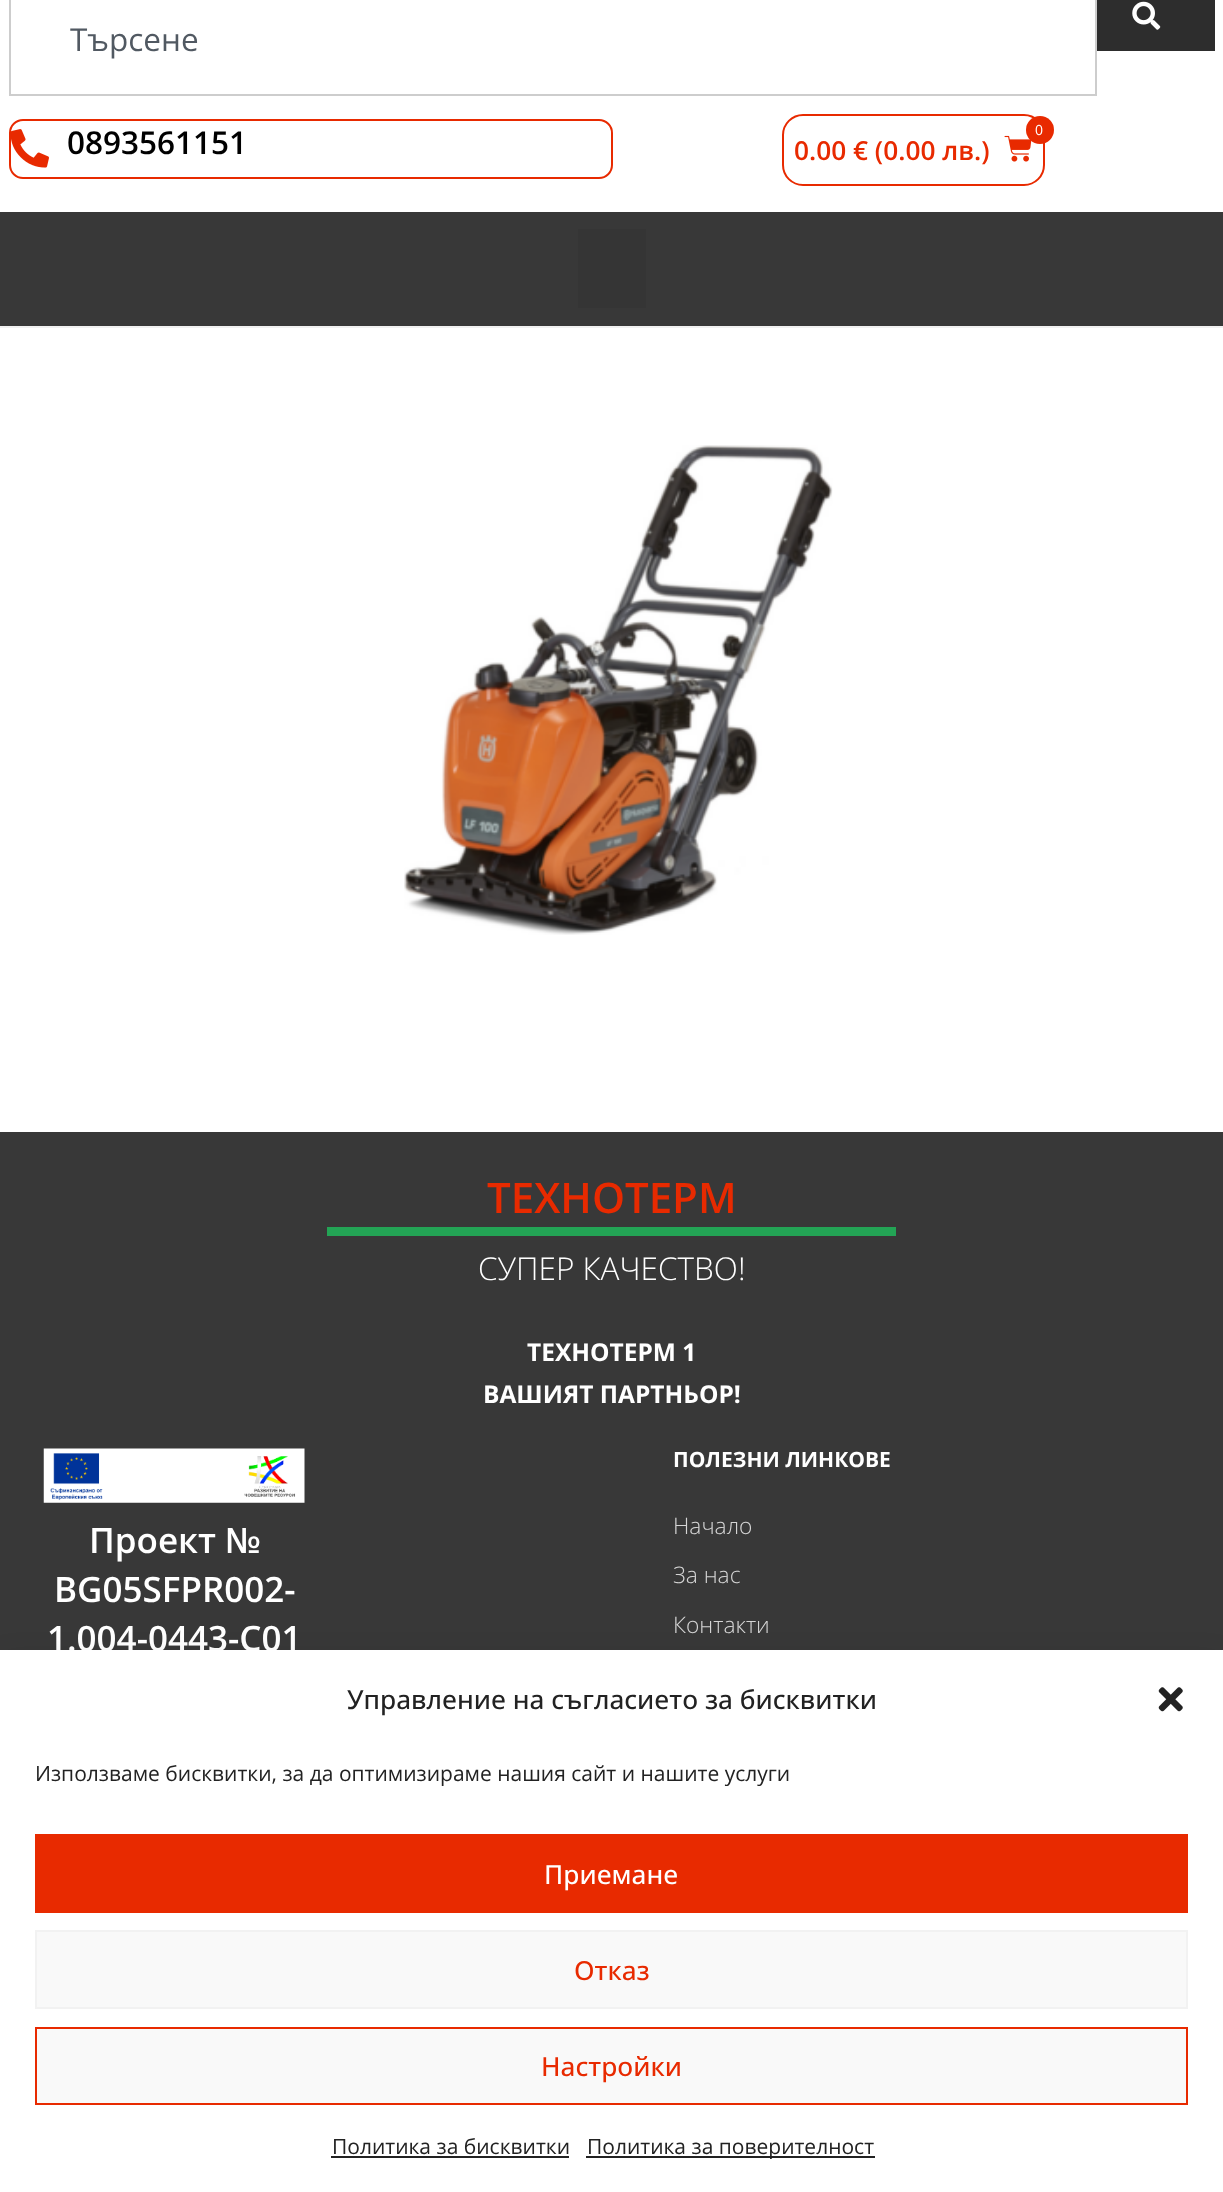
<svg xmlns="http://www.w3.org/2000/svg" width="1223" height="2192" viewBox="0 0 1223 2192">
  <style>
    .t1 { font: 31.5px Open Sans; fill: #515962; }
    .t2 { font: 600 31.5px Open Sans; fill: #000; }
    .t3 { font: 14px Open Sans; fill: #fff; }
    .t4 { font: 600 26.25px Open Sans; fill: #e82a00; }
    .t5 { font: 600 42px Open Sans; fill: #e82a00; }
    .t6 { font: 300 31.5px Open Sans; fill: #fff; }
    .t7 { font: bold 24.5px Open Sans; fill: #fff; }
    .t8 { font: 600 35px Open Sans; fill: #fff; }
    .t9 { font: bold 21px Open Sans; fill: #fff; }
    .t10 { font: 300 22.75px Open Sans; fill: #d5d5d5; }
    .t11 { font: 500 26.25px Open Sans; fill: #222; }
    .t12 { font: 21px Open Sans; fill: #222; }
    .t13 { font: 500 26.25px Open Sans; fill: #fff; }
    .t14 { font: 500 26.25px Open Sans; fill: #e82a00; }
  </style>
  <rect width="100%" height="100%" fill="#fff"/>
  <rect x="0" y="326" width="1223" height="2" fill="#f1f1f1"/>
  <rect x="10" y="-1" width="1086" height="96" fill="none" stroke="#cdcdcd" stroke-width="2"/>
  <text x="70" y="51" class="t1">Търсене</text>
  <rect x="1097" y="0" width="118" height="51" fill="#2d2d2d"/>
  <image x="1132" y="1" width="29" height="29" href="images/1.png"/>
  <rect x="10" y="120" width="602" height="58" rx="13" fill="none" stroke="#e82a00" stroke-width="2"/>
  <image x="11" y="129" width="38" height="39" href="images/2.png"/>
  <text x="67" y="154" class="t2">0893561151</text>
  <rect x="783" y="115" width="261" height="70" rx="20" fill="none" stroke="#e82a00" stroke-width="2"/>
  <image x="1004" y="135" width="28" height="27" href="images/3.png"/>
  <circle cx="1040" cy="130" r="14" fill="#e82a00"/>
  <text x="1035" y="135" class="t3">0</text>
  <text x="794" y="160" class="t4">0.00 € (0.00 лв.)</text>
  <rect x="0" y="212" width="1223" height="114" fill="#383838"/>
  <rect x="578" y="229" width="68" height="79" fill="#353535"/>
  <image x="404" y="445" width="429" height="490" href="images/4.png"/>
  <rect x="0" y="1132" width="1223" height="518" fill="#383838"/>
  <text x="487" y="1213" class="t5">ТЕХНОТЕРМ</text>
  <rect x="327" y="1227" width="569" height="9" fill="#23a455"/>
  <text x="478" y="1280" class="t6">СУПЕР КАЧЕСТВО!</text>
  <text x="527" y="1361" class="t7">ТЕХНОТЕРМ 1</text>
  <text x="483" y="1403" class="t7">ВАШИЯТ ПАРТНЬОР!</text>
  <image x="43" y="1448" width="262" height="55" href="images/5.png"/>
  <text x="89" y="1553" class="t8">Проект №</text>
  <text x="54" y="1602" class="t8">BG05SFPR002-</text>
  <text x="47" y="1651" class="t8">1.004-0443-C01</text>
  <text x="673" y="1467" class="t9">ПОЛЕЗНИ ЛИНКОВЕ</text>
  <text x="673" y="1534" class="t10">Начало</text>
  <text x="673" y="1583" class="t10">За нас</text>
  <text x="673" y="1633" class="t10">Контакти</text>
  <rect x="0" y="1668" width="1223" height="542" fill="#00000030" filter="blur(17.5px)"/>
  <rect x="0" y="1650" width="1223" height="542" fill="#fff"/>
  <text x="347" y="1709" class="t11">Управление на съгласието за бисквитки</text>
  <image x="1158" y="1687" width="25" height="25" href="images/6.png"/>
  <text x="35" y="1781" class="t12">Използваме бисквитки, за да оптимизираме нашия сайт и нашите услуги</text>
  <rect x="35" y="1834" width="1153" height="79" fill="#e82a00"/>
  <text x="544" y="1884" class="t13">Приемане</text>
  <rect x="36" y="1931" width="1151" height="77" fill="#f9f9f9" stroke="#f2f2f2" stroke-width="2"/>
  <text x="574" y="1980" class="t14">Отказ</text>
  <rect x="36" y="2028" width="1151" height="76" fill="#f9f9f9" stroke="#e82a00" stroke-width="2"/>
  <text x="541" y="2076" class="t14">Настройки</text>
  <text x="332" y="2154" class="t12">Политика за бисквитки</text>
  <rect x="331" y="2156" width="238" height="2" fill="#222"/>
  <rect x="586" y="2156" width="289" height="2" fill="#222"/>
  <text x="587" y="2154" class="t12">Политика за поверителност</text>
</svg>
